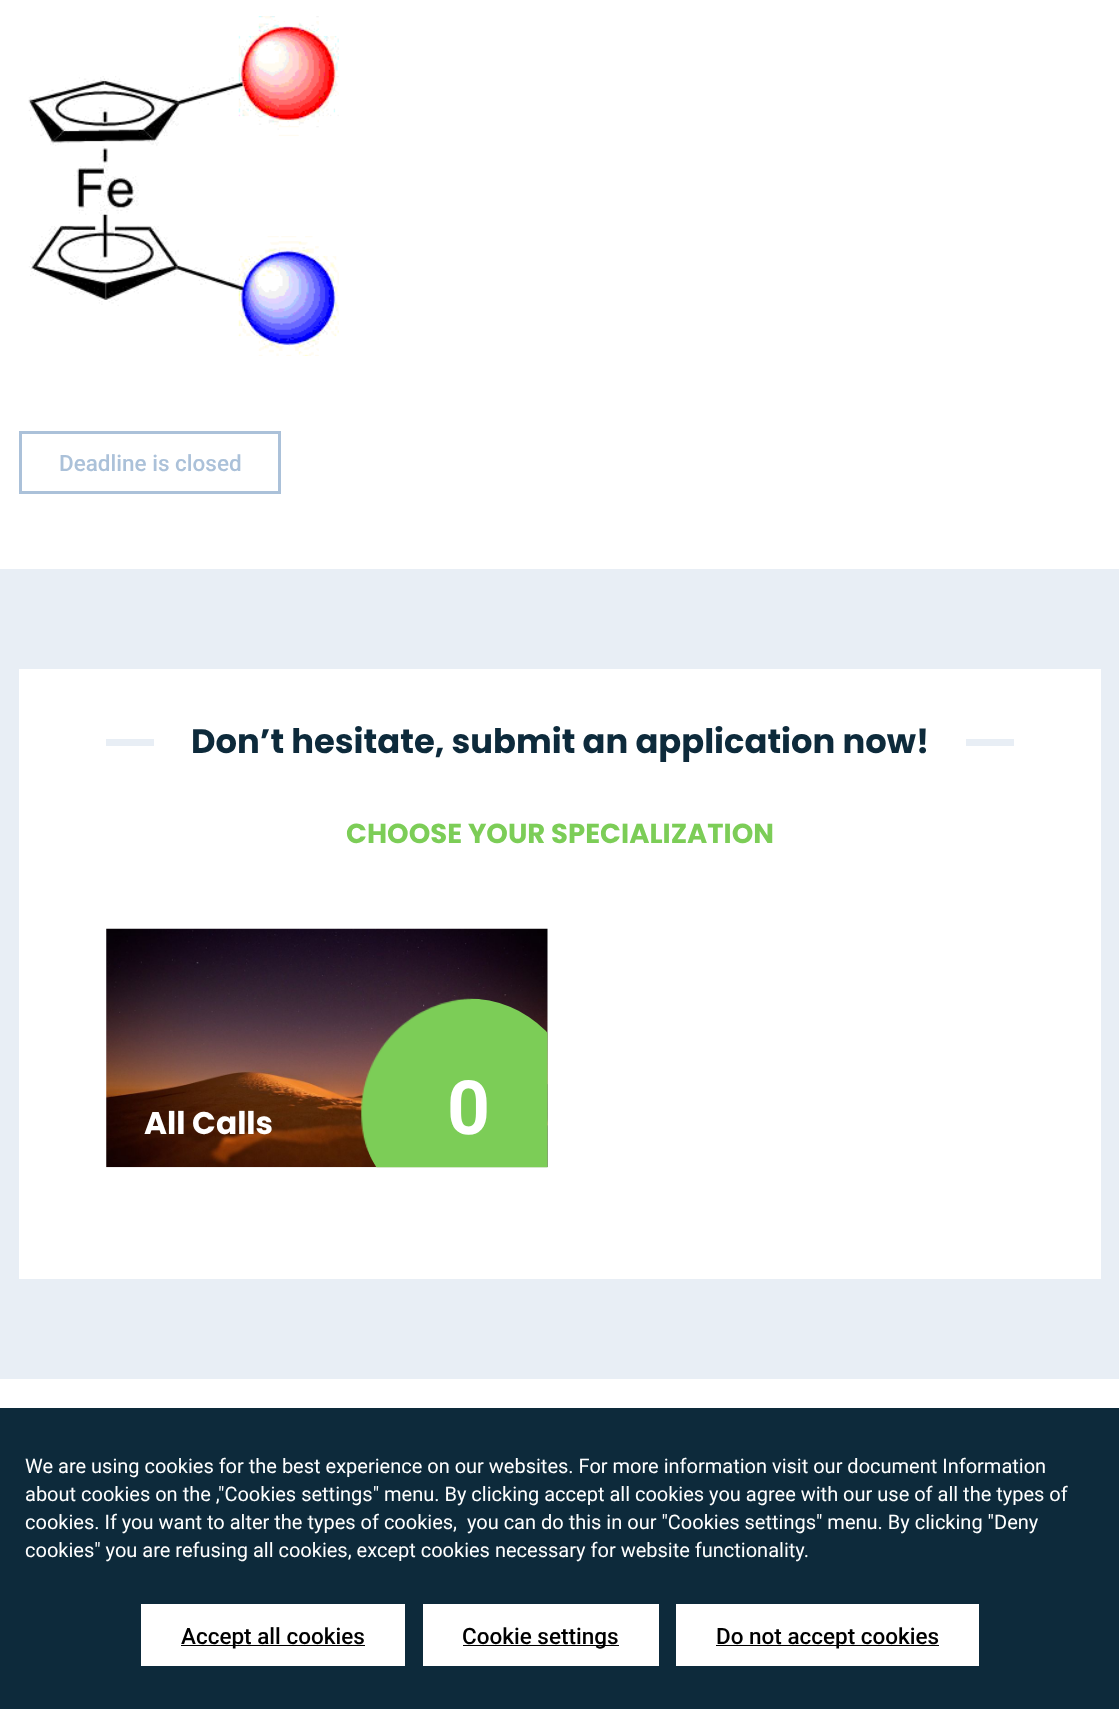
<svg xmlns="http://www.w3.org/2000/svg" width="1119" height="1709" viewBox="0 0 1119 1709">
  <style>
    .t1 { font: 500 22.5px Roboto; fill: #abc1d9; }
    .t2 { font: bold 33.75px Poppins; fill: #0d2a3b; }
    .t3 { font: bold 27.5px Poppins; fill: #7ccd57; }
    .t4 { font: bold 31.25px Poppins; fill: #fff; }
    .t5 { font: bold 75px Roboto; fill: #fff; }
    .t6 { font: 20px Roboto; fill: #fff; }
    .t7 { font: 500 22.5px Roboto; fill: #000; }
  </style>
  <rect width="100%" height="100%" fill="#fff"/>
  <image x="28" y="16" width="311" height="340" href="images/1.png"/>
  <rect x="20.5" y="432.5" width="259" height="60" fill="none" stroke="#abc1d9" stroke-width="3"/>
  <text x="59" y="471" class="t1">Deadline is closed</text>
  <rect x="0" y="569" width="1119" height="810" fill="#e8eef5"/>
  <rect x="19" y="669" width="1082" height="610" fill="#fff"/>
  <rect x="106" y="739" width="48" height="7" fill="#e8eef5"/>
  <text x="191" y="753" class="t2">Don’t hesitate, submit an application now!</text>
  <rect x="966" y="739" width="48" height="7" fill="#e8eef5"/>
  <text x="346" y="843" class="t3">CHOOSE YOUR SPECIALIZATION</text>
  <image x="106" y="928" width="442" height="240" href="images/2.png"/>
  <text x="144" y="1134" class="t4">All Calls</text>
  <image x="361" y="998" width="187" height="170" href="images/3.png"/>
  <text x="447" y="1134" class="t5">0</text>
  <rect x="0" y="1408" width="1119" height="301" fill="#0d2a3b"/>
  <text x="25" y="1473" class="t6">We are using cookies for the best experience on our websites. For more information visit our document Information</text>
  <text x="25" y="1501" class="t6">about cookies on the ,"Cookies settings" menu. By clicking accept all cookies you agree with our use of all the types of</text>
  <text x="25" y="1529" class="t6" xml:space="preserve">cookies. If you want to alter the types of cookies,  you can do this in our "Cookies settings" menu. By clicking "Deny</text>
  <text x="25" y="1557" class="t6">cookies" you are refusing all cookies, except cookies necessary for website functionality.</text>
  <rect x="141" y="1604" width="264" height="62" fill="#fff"/>
  <rect x="181" y="1645" width="184" height="1" fill="#000"/>
  <text x="181" y="1644" class="t7">Accept all cookies</text>
  <rect x="423" y="1604" width="236" height="62" fill="#fff"/>
  <rect x="463" y="1645" width="156" height="1" fill="#000"/>
  <text x="462" y="1644" class="t7">Cookie settings</text>
  <rect x="676" y="1604" width="303" height="62" fill="#fff"/>
  <rect x="716" y="1645" width="223" height="1" fill="#000"/>
  <text x="716" y="1644" class="t7">Do not accept cookies</text>
</svg>
